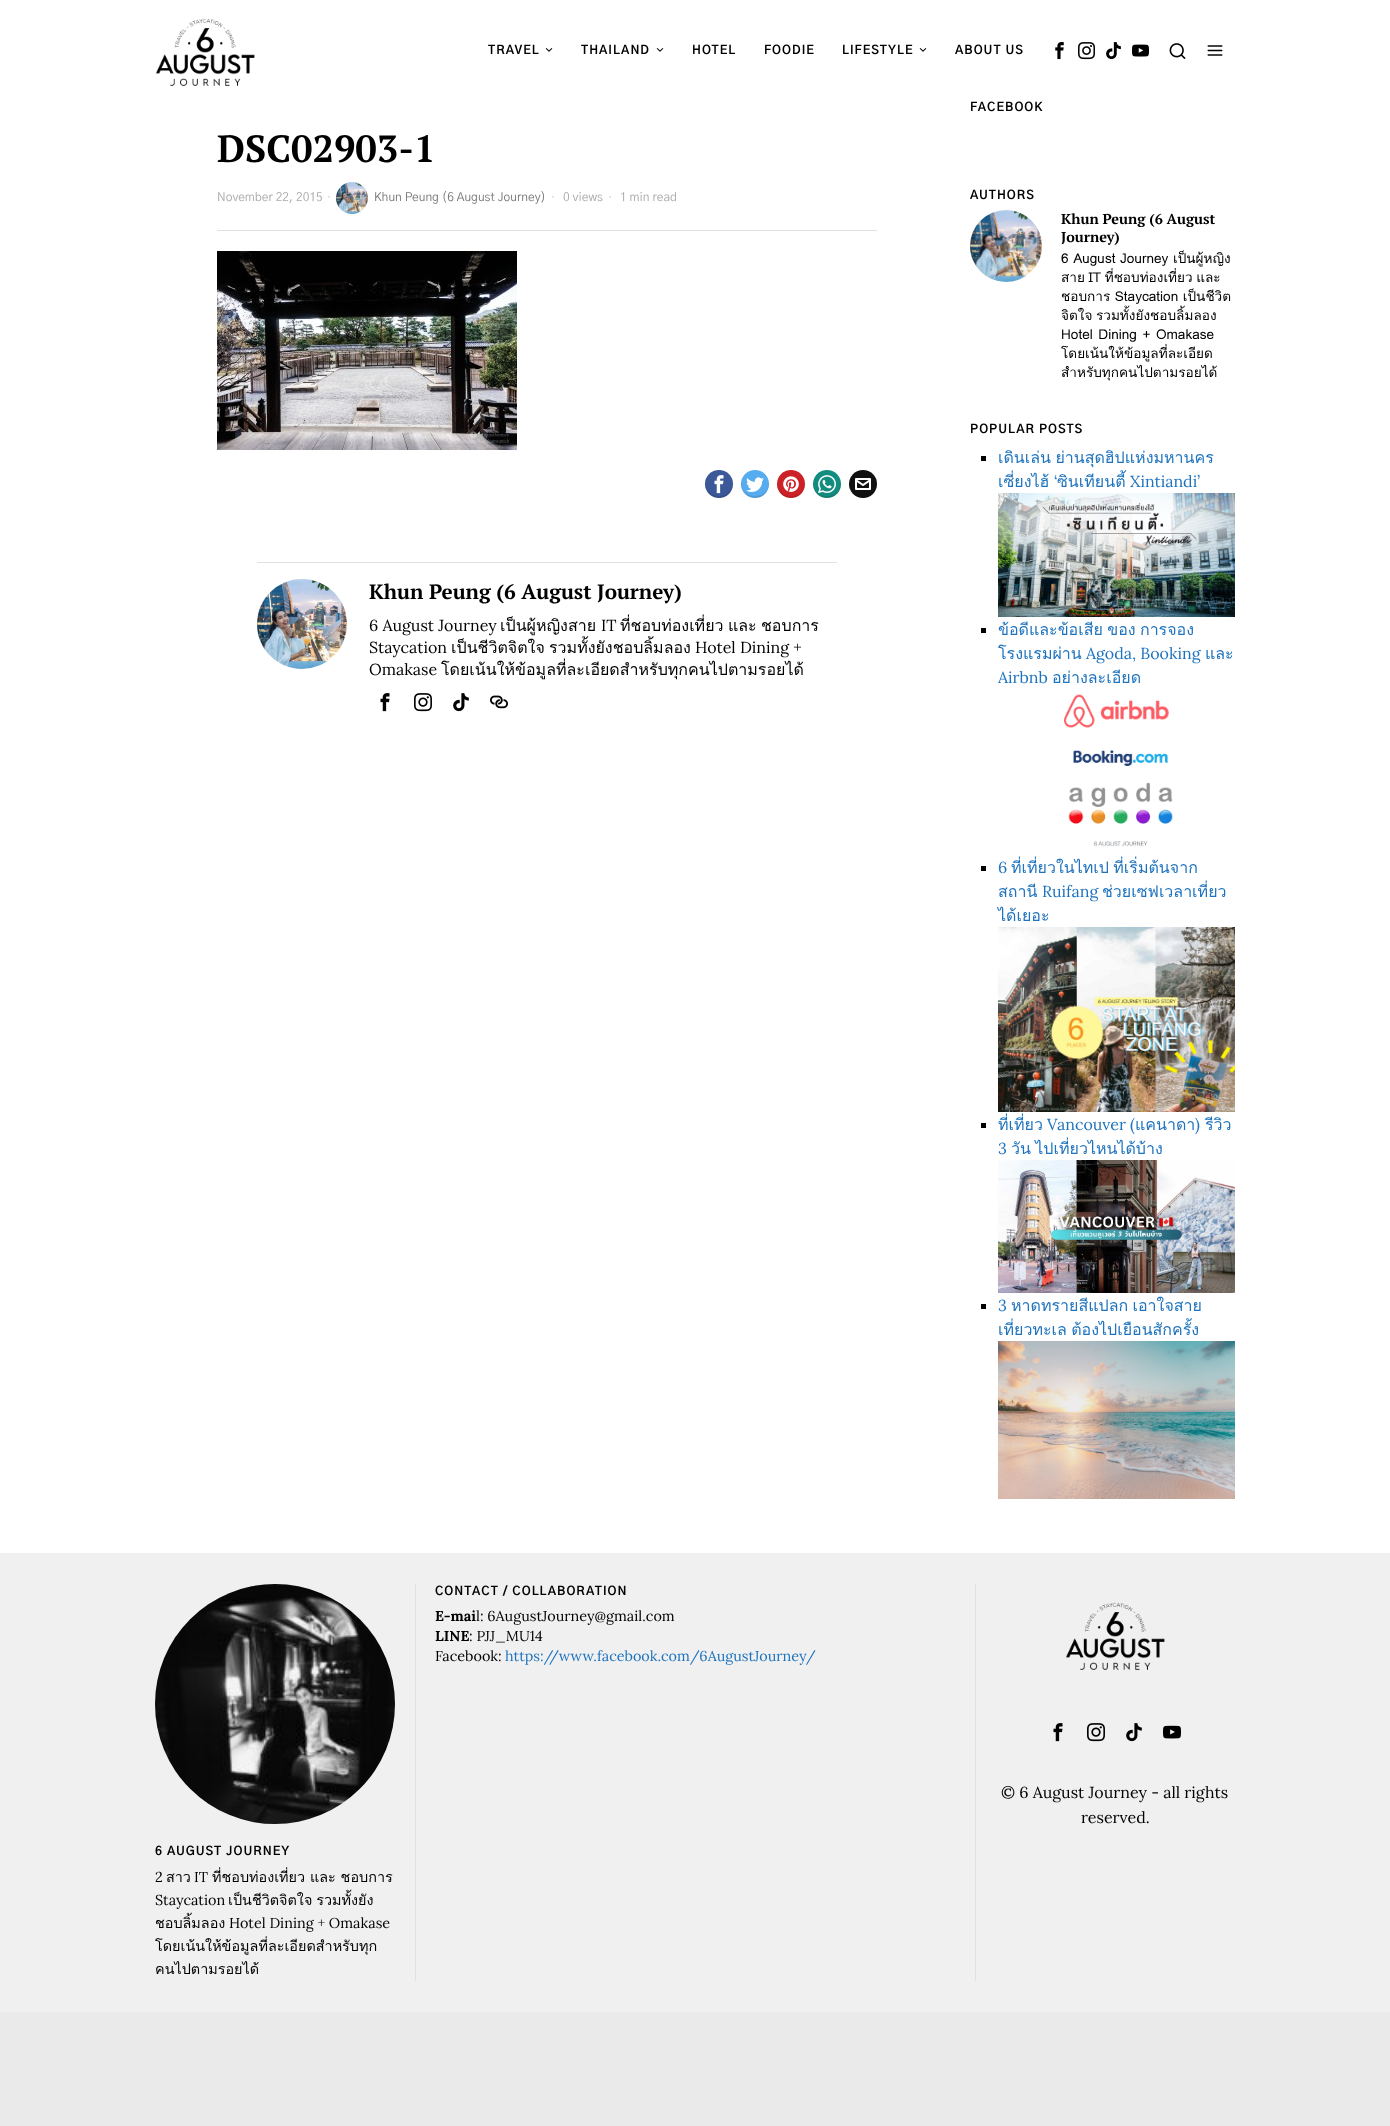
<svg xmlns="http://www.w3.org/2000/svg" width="1390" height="2126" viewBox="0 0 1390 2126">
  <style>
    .t1 { font: bold 12px 'Gothic A1'; letter-spacing: 1px; fill: #000; }
    .t2 { font: bold 38px PT Serif; fill: #000; }
    .t3 { font: 12px 'Gothic A1'; fill: #aaa; }
    .t4 { font: 12px 'Gothic A1'; fill: #d5d5d5; }
    .t5 { font: 12px 'Gothic A1'; fill: #777; }
    .t6 { font: bold 20.75px PT Serif; fill: #000; }
    .t7 { font: 16px Lora; fill: #000; }
    .t8 { font: 16px Loma; fill: #000; }
    .t9 { font: bold 14.4px PT Serif; fill: #000; }
    .t10 { font: 13.6px Loma; fill: #000; }
    .t11 { font: 16px Loma; fill: #1e73be; }
    .t12 { font: 16px Lora; fill: #1e73be; }
    .t13 { font: bold 14.4px Lora; fill: #000; }
    .t14 { font: 14.4px Lora; fill: #000; }
    .t15 { font: 14.4px Lora; fill: #1e73be; }
    .t16 { font: 14.4px Loma; fill: #000; }
  </style>
  <defs>
    <clipPath id="clip1"><rect x="1061" y="210" width="174" height="172"/></clipPath>
  </defs>
  <rect width="100%" height="100%" fill="#fff"/>
  <image x="155" y="18" width="100" height="68" href="images/1.png"/>
  <text x="488" y="54" class="t1">TRAVEL</text>
  <image x="545" y="48" width="8" height="4" href="images/2.png"/>
  <text x="581" y="54" class="t1">THAILAND</text>
  <image x="656" y="48" width="8" height="4" href="images/2.png"/>
  <text x="692" y="54" class="t1">HOTEL</text>
  <text x="764" y="54" class="t1">FOODIE</text>
  <text x="842" y="54" class="t1">LIFESTYLE</text>
  <image x="919" y="48" width="8" height="4" href="images/2.png"/>
  <text x="955" y="54" class="t1">ABOUT US</text>
  <image x="1055" y="42" width="9" height="18" href="images/3.png"/>
  <image x="1078" y="42" width="17" height="18" href="images/4.png"/>
  <image x="1106" y="42" width="15" height="18" href="images/5.png"/>
  <image x="1132" y="44" width="17" height="13" href="images/6.png"/>
  <image x="1169" y="43" width="17" height="16" href="images/7.png"/>
  <image x="1207" y="45" width="16" height="11" href="images/8.png"/>
  <rect x="217" y="230" width="660" height="1" fill="#e0e0e0"/>
  <text x="217" y="162" class="t2">DSC02903-1</text>
  <text x="217" y="201" class="t3">November 22, 2015</text>
  <text x="327" y="201" class="t4">·</text>
  <image x="336" y="182" width="32" height="32" href="images/9.png"/>
  <text x="374" y="201" class="t5">Khun Peung (6 August Journey)</text>
  <text x="551" y="201" class="t4">·</text>
  <text x="563" y="201" class="t3">0 views</text>
  <text x="608" y="201" class="t4">·</text>
  <text x="620" y="201" class="t3">1 min read</text>
  <image x="217" y="251" width="300" height="199" href="images/10.png"/>
  <circle cx="719" cy="484" r="14" fill="#3b5998"/>
  <path d="M705.5 480C700.5 496.5 725 506 732 489.5C733 486.5 733.5 483 732.5 480C735.5 501.5 702.5 501.5 705.5 480Z" fill="#0000001a"/>
  <image x="714" y="475" width="10" height="19" href="images/11.png"/>
  <circle cx="755" cy="484" r="14" fill="#55acee"/>
  <path d="M741.5 480C736.5 496.5 761 506 768 489.5C769 486.5 769.5 483 768.5 480C771.5 501.5 738.5 501.5 741.5 480Z" fill="#0000001a"/>
  <image x="746" y="477" width="18" height="15" href="images/12.png"/>
  <circle cx="791" cy="484" r="14" fill="#cc2127"/>
  <path d="M777.5 480C772.5 496.5 797 506 804 489.5C805 486.5 805.5 483 804.5 480C807.5 501.5 774.5 501.5 777.5 480Z" fill="#0000001a"/>
  <image x="783" y="476" width="16" height="16" href="images/13.png"/>
  <circle cx="827" cy="484" r="14" fill="#128c7e"/>
  <path d="M813.5 480C812.5 483 813 486.5 814 489.5C821 506 845.5 496.5 840.5 480C843.5 501.5 810.5 501.5 813.5 480Z" fill="#0000001a"/>
  <image x="818" y="475" width="18" height="19" href="images/14.png"/>
  <circle cx="863" cy="484" r="14" fill="#111"/>
  <path d="M849.5 480C844.5 496.5 869 506 876 489.5C877 486.5 877.5 483 876.5 480C879.5 501.5 846.5 501.5 849.5 480Z" fill="#0000001a"/>
  <image x="855" y="478" width="16" height="12" href="images/15.png"/>
  <rect x="257" y="562" width="580" height="1" fill="#e1e1e1"/>
  <image x="257" y="579" width="90" height="90" href="images/16.png"/>
  <text x="369" y="599" class="t6">Khun Peung (6 August Journey)</text>
  <text x="369" y="631" class="t7">6 August Journey</text>
  <text x="500" y="631" class="t8">เป็นผู้หญิงสาย</text>
  <text x="601" y="631" class="t7">IT</text>
  <text x="620" y="631" class="t8">ที่ชอบท่องเที่ยว</text>
  <text x="728" y="631" class="t8">และ</text>
  <text x="761" y="631" class="t8">ชอบการ</text>
  <text x="369" y="653" class="t7">Staycation</text>
  <text x="451" y="653" class="t8">เป็นชีวิตจิตใจ</text>
  <text x="549" y="653" class="t8">รวมทั้งยังชอบลิ้มลอง</text>
  <text x="695" y="653" class="t7">Hotel Dining +</text>
  <text x="369" y="675" class="t7">Omakase</text>
  <text x="441" y="675" class="t8">โดยเน้นให้ข้อมูลที่ละเอียดสำหรับทุกคนไปตามรอยได้</text>
  <image x="380" y="693" width="10" height="19" href="images/17.png"/>
  <image x="414" y="693" width="18" height="19" href="images/18.png"/>
  <image x="453" y="693" width="16" height="19" href="images/19.png"/>
  <image x="490" y="695" width="18" height="14" href="images/20.png"/>
  <text x="970" y="111" class="t1">FACEBOOK</text>
  <text x="970" y="199" class="t1">AUTHORS</text>
  <image x="970" y="210" width="72" height="72" href="images/21.png"/>
  <text x="1061" y="224" class="t9">Khun Peung (6 August</text>
  <text x="1061" y="242" class="t9">Journey)</text>
  <text x="1061" y="263" class="t10">6 August Journey เป็นผู้หญิง</text>
  <text x="1061" y="282" word-spacing="-1" class="t10">สาย IT ที่ชอบท่องเที่ยว และ</text>
  <text x="1061" y="301" class="t10">ชอบการ Staycation เป็นชีวิต</text>
  <g clip-path="url(#clip1)">
    <text x="1061" y="320" word-spacing="-1" class="t10">จิตใจ รวมทั้งยังชอบลิ้มลอง</text>
  </g>
  <text x="1061" y="339" word-spacing="1" class="t10">Hotel Dining + Omakase</text>
  <text x="1061" y="358" class="t10">โดยเน้นให้ข้อมูลที่ละเอียด</text>
  <g clip-path="url(#clip1)">
    <text x="1061" y="377" class="t10">สำหรับทุกคนไปตามรอยได้</text>
  </g>
  <text x="970" y="433" class="t1">POPULAR POSTS</text>
  <rect x="981" y="456" width="5" height="5" fill="#000"/>
  <text x="998" y="463" word-spacing="-1" class="t11">เดินเล่น ย่านสุดฮิปแห่งมหานคร</text>
  <text x="998" y="487" class="t11">เซี่ยงไฮ้</text>
  <text x="1054" y="487" class="t12">‘</text>
  <text x="1057" y="487" class="t11">ซินเทียนตี้</text>
  <text x="1130" y="487" class="t12">Xintiandi’</text>
  <image x="998" y="493" width="237" height="124" href="images/22.png"/>
  <rect x="981" y="628" width="5" height="5" fill="#000"/>
  <text x="998" y="635" word-spacing="-1" class="t11">ข้อดีและข้อเสีย ของ การจอง</text>
  <text x="998" y="659" class="t11">โรงแรมผ่าน</text>
  <text x="1086" y="659" class="t12">Agoda, Booking</text>
  <text x="1205" y="659" class="t11">และ</text>
  <text x="998" y="683" class="t12">Airbnb</text>
  <text x="1052" y="683" class="t11">อย่างละเอียด</text>
  <image x="1064" y="694" width="109" height="153" href="images/23.png"/>
  <rect x="981" y="866" width="5" height="5" fill="#000"/>
  <text x="998" y="873" class="t12">6</text>
  <text x="1011" y="873" word-spacing="-1" class="t11">ที่เที่ยวในไทเป ที่เริ่มต้นจาก</text>
  <text x="998" y="897" class="t11">สถานี</text>
  <text x="1042" y="897" class="t12">Ruifang</text>
  <text x="1102" y="897" class="t11">ช่วยเซฟเวลาเที่ยว</text>
  <text x="998" y="921" class="t11">ได้เยอะ</text>
  <image x="998" y="927" width="237" height="185" href="images/24.png"/>
  <text x="998" y="1130" class="t11">ที่เที่ยว</text>
  <text x="1047" y="1130" class="t12">Vancouver (</text>
  <text x="1195" y="1130" class="t12">)</text>
  <text x="1205" y="1130" class="t11">รีวิว</text>
  <rect x="981" y="1123" width="5" height="5" fill="#000"/>
  <text x="1135" y="1130" class="t11">แคนาดา</text>
  <text x="998" y="1154" class="t12">3</text>
  <text x="1011" y="1154" word-spacing="-1" class="t11">วัน ไปเที่ยวไหนได้บ้าง</text>
  <image x="998" y="1160" width="237" height="133" href="images/25.png"/>
  <rect x="981" y="1304" width="5" height="5" fill="#000"/>
  <text x="998" y="1311" class="t12">3</text>
  <text x="1011" y="1311" word-spacing="-1" class="t11">หาดทรายสีแปลก เอาใจสาย</text>
  <text x="998" y="1335" word-spacing="-1" class="t11">เที่ยวทะเล ต้องไปเยือนสักครั้ง</text>
  <image x="998" y="1341" width="237" height="158" href="images/26.png"/>
  <rect x="0" y="1553" width="1390" height="459" fill="#f0f0f0"/>
  <rect x="415" y="1584" width="1" height="397" fill="#e1e1e1"/>
  <text x="435" y="1595" class="t1">CONTACT / COLLABORATION</text>
  <text x="435" y="1621" class="t13">E-mai</text>
  <text x="476" y="1621" class="t14">l: 6AugustJourney@gmail.com</text>
  <text x="435" y="1641" class="t13">LINE</text>
  <text x="469" y="1641" class="t14">: PJJ_MU14</text>
  <text x="435" y="1661" class="t14">Facebook:</text>
  <text x="505" y="1661" class="t15">https://www.facebook.com/6AugustJourney/</text>
  <rect x="975" y="1584" width="1" height="397" fill="#e1e1e1"/>
  <image x="1065" y="1602" width="100" height="68" href="images/27.png"/>
  <image x="1053" y="1723" width="10" height="19" href="images/28.png"/>
  <image x="1087" y="1723" width="18" height="19" href="images/29.png"/>
  <image x="1126" y="1723" width="16" height="19" href="images/30.png"/>
  <image x="1163" y="1725" width="18" height="14" href="images/31.png"/>
  <text x="1001" y="1798" class="t7">© 6 August Journey - all rights</text>
  <text x="1081" y="1823" class="t7">reserved.</text>
  <image x="155" y="1584" width="240" height="240" href="images/32.png"/>
  <text x="155" y="1855" class="t1">6 AUGUST JOURNEY</text>
  <text x="155" y="1882" class="t14">2</text>
  <text x="166" y="1882" class="t16">สาว</text>
  <text x="194" y="1882" class="t14">IT</text>
  <text x="212" y="1882" class="t16">ที่ชอบท่องเที่ยว และ ชอบการ</text>
  <text x="155" y="1905" class="t14">Staycation</text>
  <text x="228" y="1905" word-spacing="-1" class="t16">เป็นชีวิตจิตใจ รวมทั้งยัง</text>
  <text x="155" y="1928" class="t16">ชอบลิ้มลอง</text>
  <text x="229" y="1928" class="t14">Hotel Dining + Omakase</text>
  <text x="155" y="1951" class="t16">โดยเน้นให้ข้อมูลที่ละเอียดสำหรับทุก</text>
  <text x="155" y="1974" class="t16">คนไปตามรอยได้</text>
  <rect x="0" y="2012" width="1390" height="114" fill="#eaeaea"/>
</svg>
